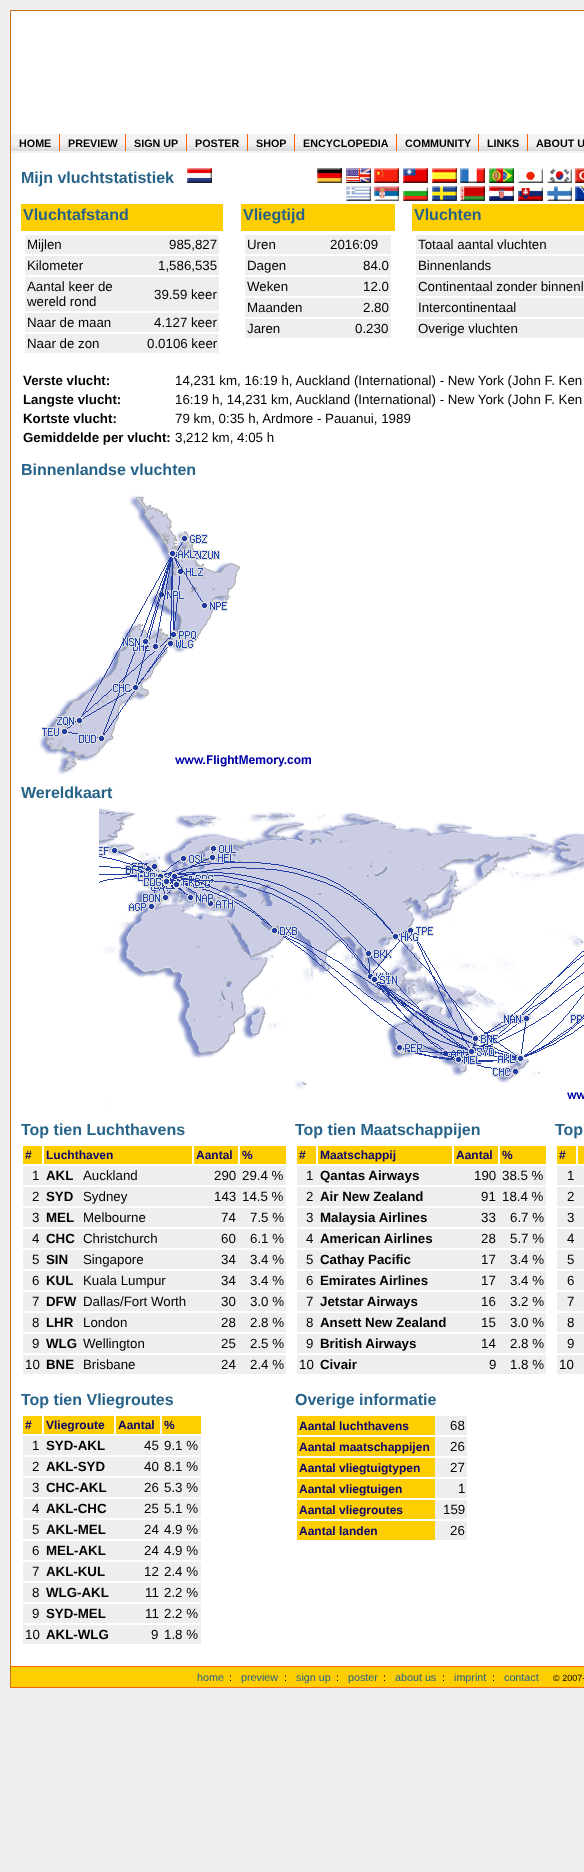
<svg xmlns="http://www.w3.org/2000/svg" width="584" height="1872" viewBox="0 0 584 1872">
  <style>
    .t1 { font: bold 10.75px Liberation Sans; fill: #000; }
    .t2 { font: bold 16px Liberation Sans; fill: #276388; }
    .t3 { font: 13.3px Liberation Sans; fill: #000; }
    .t4 { font: bold 13.3px Liberation Sans; fill: #000; }
    .t5 { font: bold 12px Liberation Sans; fill: #0a006b; }
    .t6 { font: 10.75px Liberation Sans; fill: #276388; }
    .t7 { font: 10.75px Liberation Sans; fill: #000; }
    .t8 { font: 9px Liberation Sans; fill: #000; }
  </style>
  <rect width="100%" height="100%" fill="#efefef"/>
  <rect x="11" y="11" width="573" height="1655" fill="#fff"/>
  <rect x="10" y="10" width="574" height="1" fill="#cd6e1e"/>
  <rect x="10" y="10" width="1" height="1678" fill="#cd6e1e"/>
  <image x="11" y="151" width="573" height="2" href="images/1.png"/>
  <image x="11" y="134" width="48" height="17" href="images/2.png"/>
  <rect x="59" y="134" width="1" height="17" fill="#ff6000"/>
  <text x="19" y="147" class="t1">HOME</text>
  <image x="60" y="134" width="65" height="17" href="images/3.png"/>
  <rect x="125" y="134" width="1" height="17" fill="#ff6000"/>
  <text x="68" y="147" class="t1">PREVIEW</text>
  <image x="126" y="134" width="60" height="17" href="images/4.png"/>
  <rect x="186" y="134" width="1" height="17" fill="#ff6000"/>
  <text x="134" y="147" class="t1">SIGN UP</text>
  <image x="187" y="134" width="60" height="17" href="images/4.png"/>
  <rect x="247" y="134" width="1" height="17" fill="#ff6000"/>
  <text x="195" y="147" class="t1">POSTER</text>
  <image x="248" y="134" width="46" height="17" href="images/5.png"/>
  <rect x="294" y="134" width="1" height="17" fill="#ff6000"/>
  <text x="256" y="147" class="t1">SHOP</text>
  <image x="295" y="134" width="101" height="17" href="images/6.png"/>
  <rect x="396" y="134" width="1" height="17" fill="#ff6000"/>
  <text x="303" y="147" class="t1">ENCYCLOPEDIA</text>
  <image x="397" y="134" width="81" height="17" href="images/7.png"/>
  <rect x="478" y="134" width="1" height="17" fill="#ff6000"/>
  <text x="405" y="147" class="t1">COMMUNITY</text>
  <image x="479" y="134" width="48" height="17" href="images/2.png"/>
  <rect x="527" y="134" width="1" height="17" fill="#ff6000"/>
  <text x="487" y="147" class="t1">LINKS</text>
  <image x="528" y="134" width="56" height="17" href="images/8.png"/>
  <text x="536" y="147" class="t1">ABOUT U</text>
  <text x="21" y="183" class="t2">Mijn vluchtstatistiek</text>
  <image x="187" y="168" width="25" height="15" href="images/9.png"/>
  <image x="317" y="168" width="25" height="15" href="images/10.png"/>
  <image x="346" y="168" width="25" height="15" href="images/11.png"/>
  <image x="374" y="168" width="25" height="15" href="images/12.png"/>
  <image x="403" y="168" width="25" height="15" href="images/13.png"/>
  <image x="432" y="168" width="25" height="15" href="images/14.png"/>
  <image x="460" y="168" width="25" height="15" href="images/15.png"/>
  <image x="489" y="168" width="25" height="15" href="images/16.png"/>
  <image x="518" y="168" width="25" height="15" href="images/17.png"/>
  <image x="547" y="168" width="25" height="15" href="images/18.png"/>
  <image x="575" y="168" width="9" height="15" href="images/19.png"/>
  <image x="346" y="186" width="25" height="15" href="images/20.png"/>
  <image x="374" y="186" width="25" height="15" href="images/21.png"/>
  <image x="403" y="187" width="25" height="14" href="images/22.png"/>
  <image x="432" y="186" width="25" height="15" href="images/23.png"/>
  <image x="460" y="186" width="25" height="15" href="images/24.png"/>
  <image x="489" y="186" width="25" height="15" href="images/25.png"/>
  <image x="518" y="187" width="25" height="14" href="images/26.png"/>
  <image x="547" y="186" width="25" height="15" href="images/27.png"/>
  <image x="575" y="186" width="9" height="15" href="images/28.png"/>
  <rect x="21" y="204" width="202" height="27" fill="#ffce00"/>
  <text x="23" y="220" class="t2">Vluchtafstand</text>
  <rect x="241" y="204" width="154" height="27" fill="#ffce00"/>
  <text x="243" y="220" class="t2">Vliegtijd</text>
  <rect x="412" y="204" width="172" height="27" fill="#ffce00"/>
  <text x="414" y="220" class="t2">Vluchten</text>
  <rect x="25" y="235" width="194" height="19" fill="#eee"/>
  <text x="27" y="249" class="t3">Mijlen</text>
  <text x="169" y="249" class="t3">985,827</text>
  <rect x="25" y="256" width="194" height="19" fill="#eee"/>
  <text x="27" y="270" class="t3">Kilometer</text>
  <text x="158" y="270" class="t3">1,586,535</text>
  <rect x="25" y="277" width="194" height="34" fill="#eee"/>
  <text x="27" y="291" class="t3">Aantal keer de</text>
  <text x="27" y="306" class="t3">wereld rond</text>
  <text x="154" y="299" class="t3">39.59 keer</text>
  <rect x="25" y="313" width="194" height="19" fill="#eee"/>
  <text x="27" y="327" class="t3">Naar de maan</text>
  <text x="154" y="327" class="t3">4.127 keer</text>
  <rect x="25" y="334" width="194" height="19" fill="#eee"/>
  <text x="27" y="348" class="t3">Naar de zon</text>
  <text x="147" y="348" class="t3">0.0106 keer</text>
  <rect x="245" y="235" width="146" height="19" fill="#eee"/>
  <text x="247" y="249" class="t3">Uren</text>
  <text x="330" y="249" class="t3">2016:09</text>
  <rect x="245" y="256" width="146" height="19" fill="#eee"/>
  <text x="247" y="270" class="t3">Dagen</text>
  <text x="363" y="270" class="t3">84.0</text>
  <rect x="245" y="277" width="146" height="19" fill="#eee"/>
  <text x="247" y="291" class="t3">Weken</text>
  <text x="363" y="291" class="t3">12.0</text>
  <rect x="245" y="298" width="146" height="19" fill="#eee"/>
  <text x="247" y="312" class="t3">Maanden</text>
  <text x="363" y="312" class="t3">2.80</text>
  <rect x="245" y="319" width="146" height="19" fill="#eee"/>
  <text x="247" y="333" class="t3">Jaren</text>
  <text x="355" y="333" class="t3">0.230</text>
  <rect x="416" y="235" width="168" height="19" fill="#eee"/>
  <text x="418" y="249" class="t3">Totaal aantal vluchten</text>
  <rect x="416" y="256" width="168" height="19" fill="#eee"/>
  <text x="418" y="270" class="t3">Binnenlands</text>
  <rect x="416" y="277" width="168" height="19" fill="#eee"/>
  <text x="418" y="291" class="t3">Continentaal zonder binnenl</text>
  <rect x="416" y="298" width="168" height="19" fill="#eee"/>
  <text x="418" y="312" class="t3">Intercontinentaal</text>
  <rect x="416" y="319" width="168" height="19" fill="#eee"/>
  <text x="418" y="333" class="t3">Overige vluchten</text>
  <text x="23" y="385" class="t4">Verste vlucht:</text>
  <text x="175" y="385" class="t3">14,231 km, 16:19 h, Auckland (International) - New York (John F. Ken</text>
  <text x="23" y="404" class="t4">Langste vlucht:</text>
  <text x="175" y="404" class="t3">16:19 h, 14,231 km, Auckland (International) - New York (John F. Ken</text>
  <text x="23" y="423" class="t4">Kortste vlucht:</text>
  <text x="175" y="423" class="t3">79 km, 0:35 h, Ardmore - Pauanui, 1989</text>
  <text x="23" y="442" class="t4">Gemiddelde per vlucht:</text>
  <text x="175" y="442" class="t3">3,212 km, 4:05 h</text>
  <text x="21" y="475" class="t2">Binnenlandse vluchten</text>
  <image x="39" y="495" width="272" height="280" href="images/29.png"/>
  <text x="21" y="798" class="t2">Wereldkaart</text>
  <image x="99" y="808" width="485" height="297" href="images/30.png"/>
  <text x="21" y="1135" class="t2">Top tien Luchthavens</text>
  <rect x="23" y="1146" width="19" height="18" fill="#ffce00"/>
  <text x="25" y="1159" class="t5">#</text>
  <rect x="44" y="1146" width="148" height="18" fill="#ffce00"/>
  <text x="46" y="1159" class="t5">Luchthaven</text>
  <rect x="194" y="1146" width="44" height="18" fill="#ffce00"/>
  <text x="196" y="1159" class="t5">Aantal</text>
  <rect x="240" y="1146" width="46" height="18" fill="#ffce00"/>
  <text x="242" y="1159" class="t5">%</text>
  <rect x="23" y="1166" width="263" height="19" fill="#eee"/>
  <text x="32" y="1180" class="t3">1</text>
  <text x="46" y="1180" class="t4">AKL</text>
  <text x="83" y="1180" class="t3">Auckland</text>
  <text x="214" y="1180" class="t3">290</text>
  <text x="242" y="1180" class="t3">29.4 %</text>
  <rect x="23" y="1187" width="263" height="19" fill="#eee"/>
  <text x="32" y="1201" class="t3">2</text>
  <text x="46" y="1201" class="t4">SYD</text>
  <text x="83" y="1201" class="t3">Sydney</text>
  <text x="214" y="1201" class="t3">143</text>
  <text x="242" y="1201" class="t3">14.5 %</text>
  <rect x="23" y="1208" width="263" height="19" fill="#eee"/>
  <text x="32" y="1222" class="t3">3</text>
  <text x="46" y="1222" class="t4">MEL</text>
  <text x="83" y="1222" class="t3">Melbourne</text>
  <text x="221" y="1222" class="t3">74</text>
  <text x="250" y="1222" class="t3">7.5 %</text>
  <rect x="23" y="1229" width="263" height="19" fill="#eee"/>
  <text x="32" y="1243" class="t3">4</text>
  <text x="46" y="1243" class="t4">CHC</text>
  <text x="83" y="1243" class="t3">Christchurch</text>
  <text x="221" y="1243" class="t3">60</text>
  <text x="250" y="1243" class="t3">6.1 %</text>
  <rect x="23" y="1250" width="263" height="19" fill="#eee"/>
  <text x="32" y="1264" class="t3">5</text>
  <text x="46" y="1264" class="t4">SIN</text>
  <text x="83" y="1264" class="t3">Singapore</text>
  <text x="221" y="1264" class="t3">34</text>
  <text x="250" y="1264" class="t3">3.4 %</text>
  <rect x="23" y="1271" width="263" height="19" fill="#eee"/>
  <text x="32" y="1285" class="t3">6</text>
  <text x="46" y="1285" class="t4">KUL</text>
  <text x="83" y="1285" class="t3">Kuala Lumpur</text>
  <text x="221" y="1285" class="t3">34</text>
  <text x="250" y="1285" class="t3">3.4 %</text>
  <rect x="23" y="1292" width="263" height="19" fill="#eee"/>
  <text x="32" y="1306" class="t3">7</text>
  <text x="46" y="1306" class="t4">DFW</text>
  <text x="83" y="1306" class="t3">Dallas/Fort Worth</text>
  <text x="221" y="1306" class="t3">30</text>
  <text x="250" y="1306" class="t3">3.0 %</text>
  <rect x="23" y="1313" width="263" height="19" fill="#eee"/>
  <text x="32" y="1327" class="t3">8</text>
  <text x="46" y="1327" class="t4">LHR</text>
  <text x="83" y="1327" class="t3">London</text>
  <text x="221" y="1327" class="t3">28</text>
  <text x="250" y="1327" class="t3">2.8 %</text>
  <rect x="23" y="1334" width="263" height="19" fill="#eee"/>
  <text x="32" y="1348" class="t3">9</text>
  <text x="46" y="1348" class="t4">WLG</text>
  <text x="83" y="1348" class="t3">Wellington</text>
  <text x="221" y="1348" class="t3">25</text>
  <text x="250" y="1348" class="t3">2.5 %</text>
  <rect x="23" y="1355" width="263" height="19" fill="#eee"/>
  <text x="25" y="1369" class="t3">10</text>
  <text x="46" y="1369" class="t4">BNE</text>
  <text x="83" y="1369" class="t3">Brisbane</text>
  <text x="221" y="1369" class="t3">24</text>
  <text x="250" y="1369" class="t3">2.4 %</text>
  <text x="295" y="1135" class="t2">Top tien Maatschappijen</text>
  <rect x="297" y="1146" width="19" height="18" fill="#ffce00"/>
  <text x="299" y="1159" class="t5">#</text>
  <rect x="318" y="1146" width="134" height="18" fill="#ffce00"/>
  <text x="320" y="1159" class="t5">Maatschappij</text>
  <rect x="454" y="1146" width="44" height="18" fill="#ffce00"/>
  <text x="456" y="1159" class="t5">Aantal</text>
  <rect x="500" y="1146" width="46" height="18" fill="#ffce00"/>
  <text x="502" y="1159" class="t5">%</text>
  <rect x="297" y="1166" width="249" height="19" fill="#eee"/>
  <text x="306" y="1180" class="t3">1</text>
  <text x="320" y="1180" class="t4">Qantas Airways</text>
  <text x="474" y="1180" class="t3">190</text>
  <text x="502" y="1180" class="t3">38.5 %</text>
  <rect x="297" y="1187" width="249" height="19" fill="#eee"/>
  <text x="306" y="1201" class="t3">2</text>
  <text x="320" y="1201" class="t4">Air New Zealand</text>
  <text x="481" y="1201" class="t3">91</text>
  <text x="502" y="1201" class="t3">18.4 %</text>
  <rect x="297" y="1208" width="249" height="19" fill="#eee"/>
  <text x="306" y="1222" class="t3">3</text>
  <text x="320" y="1222" class="t4">Malaysia Airlines</text>
  <text x="481" y="1222" class="t3">33</text>
  <text x="510" y="1222" class="t3">6.7 %</text>
  <rect x="297" y="1229" width="249" height="19" fill="#eee"/>
  <text x="306" y="1243" class="t3">4</text>
  <text x="320" y="1243" class="t4">American Airlines</text>
  <text x="481" y="1243" class="t3">28</text>
  <text x="510" y="1243" class="t3">5.7 %</text>
  <rect x="297" y="1250" width="249" height="19" fill="#eee"/>
  <text x="306" y="1264" class="t3">5</text>
  <text x="320" y="1264" class="t4">Cathay Pacific</text>
  <text x="481" y="1264" class="t3">17</text>
  <text x="510" y="1264" class="t3">3.4 %</text>
  <rect x="297" y="1271" width="249" height="19" fill="#eee"/>
  <text x="306" y="1285" class="t3">6</text>
  <text x="320" y="1285" class="t4">Emirates Airlines</text>
  <text x="481" y="1285" class="t3">17</text>
  <text x="510" y="1285" class="t3">3.4 %</text>
  <rect x="297" y="1292" width="249" height="19" fill="#eee"/>
  <text x="306" y="1306" class="t3">7</text>
  <text x="320" y="1306" class="t4">Jetstar Airways</text>
  <text x="481" y="1306" class="t3">16</text>
  <text x="510" y="1306" class="t3">3.2 %</text>
  <rect x="297" y="1313" width="249" height="19" fill="#eee"/>
  <text x="306" y="1327" class="t3">8</text>
  <text x="320" y="1327" class="t4">Ansett New Zealand</text>
  <text x="481" y="1327" class="t3">15</text>
  <text x="510" y="1327" class="t3">3.0 %</text>
  <rect x="297" y="1334" width="249" height="19" fill="#eee"/>
  <text x="306" y="1348" class="t3">9</text>
  <text x="320" y="1348" class="t4">British Airways</text>
  <text x="481" y="1348" class="t3">14</text>
  <text x="510" y="1348" class="t3">2.8 %</text>
  <rect x="297" y="1355" width="249" height="19" fill="#eee"/>
  <text x="299" y="1369" class="t3">10</text>
  <text x="320" y="1369" class="t4">Civair</text>
  <text x="489" y="1369" class="t3">9</text>
  <text x="510" y="1369" class="t3">1.8 %</text>
  <text x="555" y="1135" class="t2">Top</text>
  <rect x="557" y="1146" width="19" height="18" fill="#ffce00"/>
  <text x="559" y="1159" class="t5">#</text>
  <rect x="578" y="1146" width="6" height="18" fill="#ffce00"/>
  <rect x="557" y="1166" width="27" height="19" fill="#eee"/>
  <text x="567" y="1180" class="t3">1</text>
  <rect x="557" y="1187" width="27" height="19" fill="#eee"/>
  <text x="567" y="1201" class="t3">2</text>
  <rect x="557" y="1208" width="27" height="19" fill="#eee"/>
  <text x="567" y="1222" class="t3">3</text>
  <rect x="557" y="1229" width="27" height="19" fill="#eee"/>
  <text x="567" y="1243" class="t3">4</text>
  <rect x="557" y="1250" width="27" height="19" fill="#eee"/>
  <text x="567" y="1264" class="t3">5</text>
  <rect x="557" y="1271" width="27" height="19" fill="#eee"/>
  <text x="567" y="1285" class="t3">6</text>
  <rect x="557" y="1292" width="27" height="19" fill="#eee"/>
  <text x="567" y="1306" class="t3">7</text>
  <rect x="557" y="1313" width="27" height="19" fill="#eee"/>
  <text x="567" y="1327" class="t3">8</text>
  <rect x="557" y="1334" width="27" height="19" fill="#eee"/>
  <text x="567" y="1348" class="t3">9</text>
  <rect x="557" y="1355" width="27" height="19" fill="#eee"/>
  <text x="559" y="1369" class="t3">10</text>
  <text x="21" y="1405" class="t2">Top tien Vliegroutes</text>
  <rect x="23" y="1416" width="19" height="18" fill="#ffce00"/>
  <text x="25" y="1429" class="t5">#</text>
  <rect x="44" y="1416" width="70" height="18" fill="#ffce00"/>
  <text x="46" y="1429" class="t5">Vliegroute</text>
  <rect x="116" y="1416" width="44" height="18" fill="#ffce00"/>
  <text x="118" y="1429" class="t5">Aantal</text>
  <rect x="162" y="1416" width="39" height="18" fill="#ffce00"/>
  <text x="164" y="1429" class="t5">%</text>
  <rect x="23" y="1436" width="178" height="19" fill="#eee"/>
  <text x="32" y="1450" class="t3">1</text>
  <text x="46" y="1450" class="t4">SYD-AKL</text>
  <text x="144" y="1450" class="t3">45</text>
  <text x="164" y="1450" class="t3">9.1 %</text>
  <rect x="23" y="1457" width="178" height="19" fill="#eee"/>
  <text x="32" y="1471" class="t3">2</text>
  <text x="46" y="1471" class="t4">AKL-SYD</text>
  <text x="144" y="1471" class="t3">40</text>
  <text x="164" y="1471" class="t3">8.1 %</text>
  <rect x="23" y="1478" width="178" height="19" fill="#eee"/>
  <text x="32" y="1492" class="t3">3</text>
  <text x="46" y="1492" class="t4">CHC-AKL</text>
  <text x="144" y="1492" class="t3">26</text>
  <text x="164" y="1492" class="t3">5.3 %</text>
  <rect x="23" y="1499" width="178" height="19" fill="#eee"/>
  <text x="32" y="1513" class="t3">4</text>
  <text x="46" y="1513" class="t4">AKL-CHC</text>
  <text x="144" y="1513" class="t3">25</text>
  <text x="164" y="1513" class="t3">5.1 %</text>
  <rect x="23" y="1520" width="178" height="19" fill="#eee"/>
  <text x="32" y="1534" class="t3">5</text>
  <text x="46" y="1534" class="t4">AKL-MEL</text>
  <text x="144" y="1534" class="t3">24</text>
  <text x="164" y="1534" class="t3">4.9 %</text>
  <rect x="23" y="1541" width="178" height="19" fill="#eee"/>
  <text x="32" y="1555" class="t3">6</text>
  <text x="46" y="1555" class="t4">MEL-AKL</text>
  <text x="144" y="1555" class="t3">24</text>
  <text x="164" y="1555" class="t3">4.9 %</text>
  <rect x="23" y="1562" width="178" height="19" fill="#eee"/>
  <text x="32" y="1576" class="t3">7</text>
  <text x="46" y="1576" class="t4">AKL-KUL</text>
  <text x="144" y="1576" class="t3">12</text>
  <text x="164" y="1576" class="t3">2.4 %</text>
  <rect x="23" y="1583" width="178" height="19" fill="#eee"/>
  <text x="32" y="1597" class="t3">8</text>
  <text x="46" y="1597" class="t4">WLG-AKL</text>
  <text x="145" y="1597" class="t3">11</text>
  <text x="164" y="1597" class="t3">2.2 %</text>
  <rect x="23" y="1604" width="178" height="19" fill="#eee"/>
  <text x="32" y="1618" class="t3">9</text>
  <text x="46" y="1618" class="t4">SYD-MEL</text>
  <text x="145" y="1618" class="t3">11</text>
  <text x="164" y="1618" class="t3">2.2 %</text>
  <rect x="23" y="1625" width="178" height="19" fill="#eee"/>
  <text x="25" y="1639" class="t3">10</text>
  <text x="46" y="1639" class="t4">AKL-WLG</text>
  <text x="151" y="1639" class="t3">9</text>
  <text x="164" y="1639" class="t3">1.8 %</text>
  <text x="295" y="1405" class="t2">Overige informatie</text>
  <rect x="435" y="1416" width="32" height="19" fill="#eee"/>
  <rect x="297" y="1416" width="138" height="19" fill="#ffce00"/>
  <text x="299" y="1430" class="t5">Aantal luchthavens</text>
  <text x="450" y="1430" class="t3">68</text>
  <rect x="435" y="1437" width="32" height="19" fill="#eee"/>
  <rect x="297" y="1437" width="138" height="19" fill="#ffce00"/>
  <text x="299" y="1451" class="t5">Aantal maatschappijen</text>
  <text x="450" y="1451" class="t3">26</text>
  <rect x="435" y="1458" width="32" height="19" fill="#eee"/>
  <rect x="297" y="1458" width="138" height="19" fill="#ffce00"/>
  <text x="299" y="1472" class="t5">Aantal vliegtuigtypen</text>
  <text x="450" y="1472" class="t3">27</text>
  <rect x="435" y="1479" width="32" height="19" fill="#eee"/>
  <rect x="297" y="1479" width="138" height="19" fill="#ffce00"/>
  <text x="299" y="1493" class="t5">Aantal vliegtuigen</text>
  <text x="458" y="1493" class="t3">1</text>
  <rect x="435" y="1500" width="32" height="19" fill="#eee"/>
  <rect x="297" y="1500" width="138" height="19" fill="#ffce00"/>
  <text x="299" y="1514" class="t5">Aantal vliegroutes</text>
  <text x="443" y="1514" class="t3">159</text>
  <rect x="435" y="1521" width="32" height="19" fill="#eee"/>
  <rect x="297" y="1521" width="138" height="19" fill="#ffce00"/>
  <text x="299" y="1535" class="t5">Aantal landen</text>
  <text x="450" y="1535" class="t3">26</text>
  <rect x="11" y="1667" width="573" height="20" fill="#ffce00"/>
  <rect x="11" y="1666" width="573" height="1" fill="#ff6000"/>
  <rect x="11" y="1687" width="573" height="1" fill="#ff6000"/>
  <text x="197" y="1681" class="t6">home</text>
  <text x="229" y="1681" class="t7">:</text>
  <text x="241" y="1681" class="t6">preview</text>
  <text x="284" y="1681" class="t7">:</text>
  <text x="296" y="1681" class="t6">sign up</text>
  <text x="336" y="1681" class="t7">:</text>
  <text x="348" y="1681" class="t6">poster</text>
  <text x="383" y="1681" class="t7">:</text>
  <text x="395" y="1681" class="t6">about us</text>
  <text x="442" y="1681" class="t7">:</text>
  <text x="454" y="1681" class="t6">imprint</text>
  <text x="492" y="1681" class="t7">:</text>
  <text x="504" y="1681" class="t6">contact</text>
  <text x="553" y="1681" class="t8">© 2007-</text>
</svg>
